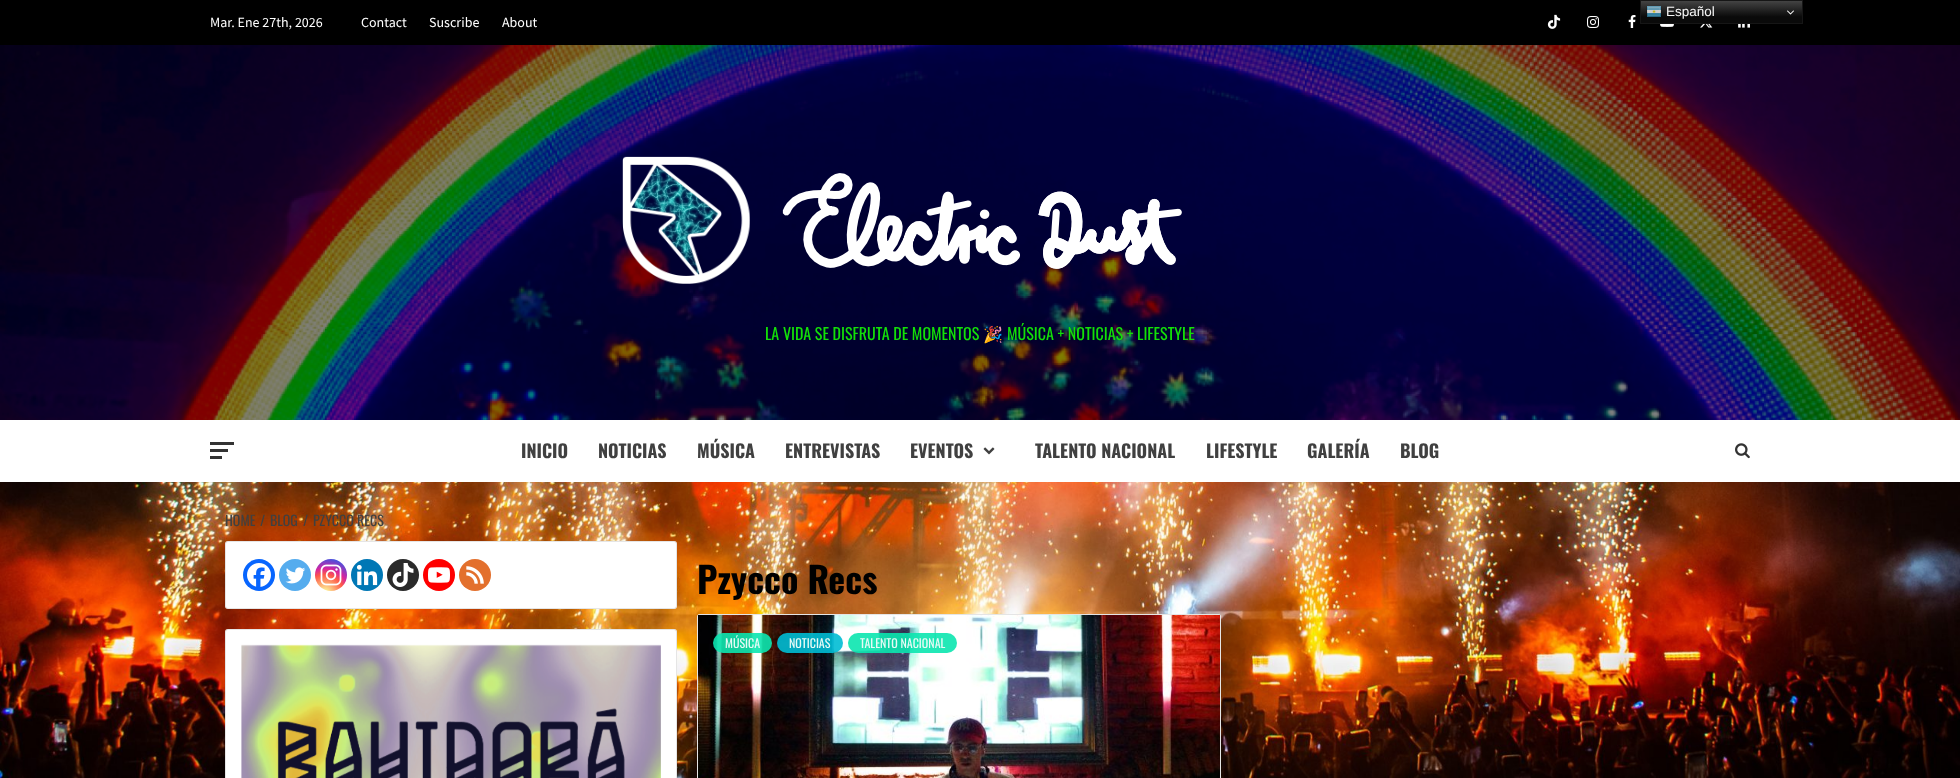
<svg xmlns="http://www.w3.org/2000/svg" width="1960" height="778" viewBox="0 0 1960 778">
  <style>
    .t1 { font: 13.5px Liberation Sans; fill: #f7f7f7; }
    .t2 { font: 14px Source Sans Pro; fill: #fff; }
    .t3 { font: 16px Oswald; fill: #13e008; }
    .t4 { font: 16px Noto Color Emoji; fill: #13e008; }
    .t5 { font: bold 18px Oswald; fill: #404040; }
    .t6 { font: 14px Oswald; fill: #404040; }
    .t7 { font: bold 36px Oswald; fill: #000; }
    .t8 { font: 12px Oswald; fill: #e8fbf6; }
  </style>
  <defs>
    <linearGradient id="g1" gradientUnits="userSpaceOnUse" x1="1722" y1="0" x2="1722" y2="24"><stop offset="0" stop-color="#474747"/><stop offset="0.7" stop-color="#0a0a0a"/></linearGradient>
    <radialGradient id="g2" gradientUnits="userSpaceOnUse" cx="325" cy="593" r="41"><stop offset="0" stop-color="#fdf497"/><stop offset="0.05" stop-color="#fdf497"/><stop offset="0.45" stop-color="#fd5949"/><stop offset="0.6" stop-color="#d6249f"/><stop offset="0.9" stop-color="#285aeb"/></radialGradient>
  </defs>
  <rect width="100%" height="100%" fill="#fff"/>
  <image x="0" y="482" width="1960" height="296" href="images/1.png"/>
  <rect x="0" y="0" width="1960" height="45" fill="#000"/>
  <rect x="1641" y="1" width="161" height="22" fill="url(#g1)"/>
  <rect x="1640.5" y="0.5" width="162" height="23" fill="none" stroke="#161616"/>
  <image x="1646" y="6" width="16" height="11" href="images/2.png"/>
  <text x="1666" y="16" class="t1">Español</text>
  <image x="1787" y="10" width="7" height="5" href="images/3.png"/>
  <text x="210" y="27" class="t2">Mar. Ene 27th, 2026</text>
  <text x="361" y="27" class="t2">Contact</text>
  <text x="429" y="27" class="t2">Suscribe</text>
  <text x="502" y="27" class="t2">About</text>
  <image x="1547" y="14" width="14" height="15" href="images/4.png"/>
  <image x="1587" y="16" width="12" height="12" href="images/5.png"/>
  <image x="1628" y="15" width="8" height="13" href="images/6.png"/>
  <image x="1660" y="24" width="14" height="3" href="images/7.png"/>
  <image x="1700" y="24" width="13" height="4" href="images/8.png"/>
  <image x="1738" y="24" width="12" height="4" href="images/9.png"/>
  <image x="0" y="45" width="1960" height="375" href="images/10.png"/>
  <image x="622" y="156" width="560" height="128" href="images/11.png"/>
  <text x="765" y="340" class="t3">LA VIDA SE DISFRUTA DE MOMENTOS</text>
  <text x="983" y="340" class="t4">🎉</text>
  <text x="1007" y="340" class="t3">MÚSICA + NOTICIAS + LIFESTYLE</text>
  <rect x="210" y="442" width="24" height="3" fill="#333"/>
  <rect x="210" y="449" width="18" height="3" fill="#333"/>
  <rect x="210" y="456" width="12" height="3" fill="#333"/>
  <text x="521" y="458" class="t5">INICIO</text>
  <text x="598" y="458" class="t5">NOTICIAS</text>
  <text x="697" y="458" class="t5">MÚSICA</text>
  <text x="785" y="458" class="t5">ENTREVISTAS</text>
  <text x="910" y="458" class="t5">EVENTOS</text>
  <image x="983" y="447" width="12" height="8" href="images/12.png"/>
  <text x="1035" y="458" class="t5">TALENTO NACIONAL</text>
  <text x="1206" y="458" class="t5">LIFESTYLE</text>
  <text x="1307" y="458" class="t5">GALERÍA</text>
  <text x="1400" y="458" class="t5">BLOG</text>
  <image x="1735" y="443" width="15" height="16" href="images/13.png"/>
  <text x="225" y="526" class="t6">HOME</text>
  <text x="260" y="526" class="t6">/</text>
  <text x="270" y="526" class="t6">BLOG</text>
  <text x="303" y="526" class="t6">/</text>
  <text x="313" y="526" class="t6">PZYCCO RECS</text>
  <rect x="225" y="541" width="452" height="68" rx="3" fill="#fff"/>
  <rect x="225.5" y="541.5" width="451" height="67" rx="2.5" fill="none" stroke="#0001011a"/>
  <circle cx="259" cy="575" r="16" fill="#0765fe"/>
  <image x="247" y="563" width="24" height="24" href="images/14.png"/>
  <circle cx="295" cy="575" r="16" fill="#55acee"/>
  <image x="285" y="567" width="21" height="17" href="images/15.png"/>
  <circle cx="331" cy="575" r="16" fill="url(#g2)"/>
  <image x="320" y="564" width="22" height="22" href="images/16.png"/>
  <circle cx="367" cy="575" r="16" fill="#0077b5"/>
  <image x="356" y="564" width="22" height="22" href="images/17.png"/>
  <circle cx="403" cy="575" r="16" fill="#2a2a2a"/>
  <image x="392" y="563" width="22" height="24" href="images/18.png"/>
  <circle cx="439" cy="575" r="16" fill="#f00"/>
  <image x="428" y="567" width="22" height="16" href="images/19.png"/>
  <circle cx="475" cy="575" r="16" fill="#e3702d"/>
  <image x="466" y="566" width="18" height="18" href="images/20.png"/>
  <rect x="225" y="629" width="452" height="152" rx="3" fill="#fff"/>
  <rect x="225.5" y="629.5" width="451" height="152" rx="2.5" fill="none" stroke="#0001011a"/>
  <image x="241" y="644" width="420" height="134" href="images/21.png"/>
  <text x="697" y="594" class="t7">Pzycco Recs</text>
  <rect x="697" y="614" width="524" height="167" rx="3" fill="#fff"/>
  <rect x="697.5" y="614.5" width="523" height="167" rx="2.5" fill="none" stroke="#0001011a"/>
  <image x="698" y="615" width="522" height="163" href="images/22.png"/>
  <rect x="713" y="633" width="59" height="20" rx="10" fill="#0be6afe6"/>
  <text x="725" y="648" class="t8">MÚSICA</text>
  <rect x="777" y="633" width="66" height="20" rx="10" fill="#00bcd4e6"/>
  <text x="789" y="648" class="t8">NOTICIAS</text>
  <rect x="848" y="633" width="109" height="20" rx="10" fill="#0be6afe6"/>
  <text x="860" y="648" class="t8">TALENTO NACIONAL</text>
</svg>
